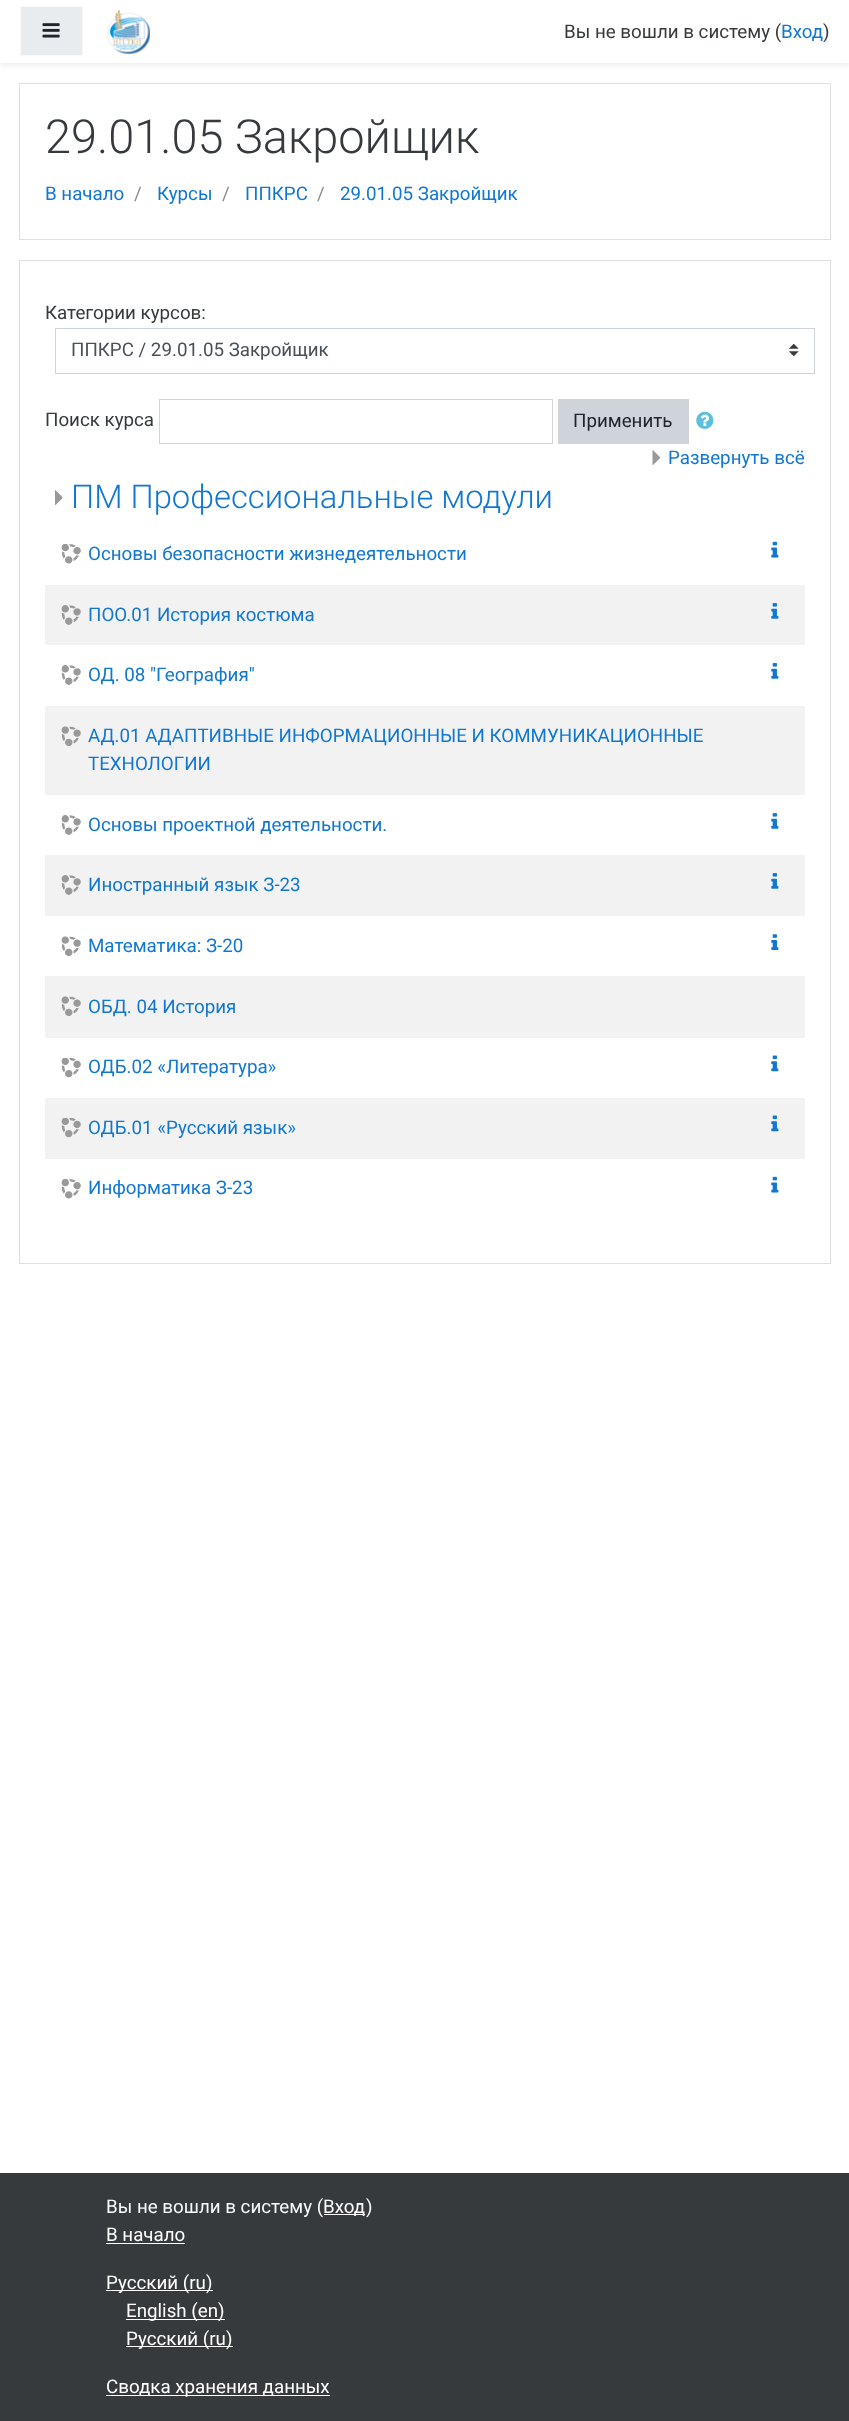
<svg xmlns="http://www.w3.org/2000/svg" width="849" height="2421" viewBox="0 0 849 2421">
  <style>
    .t1 { font: 18.75px Roboto; fill: #373a3c; }
    .t2 { font: 18.75px Roboto; fill: #1177d1; }
    .t3 { font: 300 46.9px Roboto; fill: #373a3c; }
    .t4 { font: 18.75px Roboto; fill: #868e96; }
    .t5 { font: 18.75px Roboto; fill: #495057; }
    .t6 { font: 18.75px Roboto; fill: #212529; }
    .t7 { font: 300 32.75px Roboto; fill: #1177d1; }
    .t8 { font: 18.75px Roboto; fill: #f8f9fa; }
    .t9 { font: 18.75px Roboto; fill: #fff; }
  </style>
  <rect width="100%" height="100%" fill="#fff"/>
  <rect x="0" y="3" width="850" height="62" fill="#00000014" filter="blur(2.5px)"/>
  <rect x="0" y="0" width="849" height="63" fill="#fff"/>
  <rect x="20.5" y="6.5" width="62" height="49" fill="#e9ecef" stroke="#f8f9fa"/>
  <image x="42" y="23" width="18" height="15" href="images/1.png"/>
  <image x="107" y="9" width="43" height="45" href="images/2.png"/>
  <text x="564" y="38" class="t1">Вы не вошли в систему (</text>
  <text x="781" y="38" class="t2">Вход</text>
  <text x="823" y="38" class="t1">)</text>
  <rect x="19.5" y="83.5" width="811" height="156" fill="none" stroke="#dfdfdf"/>
  <text x="45" y="153" class="t3">29.01.05 Закройщик</text>
  <text x="45" y="200" class="t2">В начало</text>
  <text x="134" y="200" class="t4">/</text>
  <text x="157" y="200" class="t2">Курсы</text>
  <text x="222" y="200" class="t4">/</text>
  <text x="245" y="200" class="t2">ППКРС</text>
  <text x="317" y="200" class="t4">/</text>
  <text x="340" y="200" class="t2">29.01.05 Закройщик</text>
  <rect x="19.5" y="260.5" width="811" height="1003" fill="none" stroke="#dfdfdf"/>
  <text x="45" y="319" class="t1">Категории курсов:</text>
  <image x="789" y="344" width="10" height="12" href="images/3.png"/>
  <rect x="55.5" y="328.5" width="759" height="45" fill="none" stroke="#ced4da"/>
  <text x="71" y="356" class="t5">ППКРС / 29.01.05 Закройщик</text>
  <text x="45" y="426" class="t1">Поиск курса</text>
  <rect x="159.5" y="399.5" width="393" height="44" fill="none" stroke="#ced4da"/>
  <rect x="558" y="399" width="131" height="45" fill="#ced4da"/>
  <text x="573" y="427" class="t6">Применить</text>
  <image x="696" y="411" width="18" height="18" href="images/4.png"/>
  <image x="652" y="450" width="8" height="15" href="images/5.png"/>
  <text x="668" y="464" class="t2">Развернуть всё</text>
  <image x="55" y="490" width="8" height="15" href="images/6.png"/>
  <text x="71" y="508" class="t7">ПМ Профессиональные модули</text>
  <image x="61" y="544" width="20" height="20" href="images/7.png"/>
  <text x="88" y="560" class="t2">Основы безопасности жизнедеятельности</text>
  <image x="771" y="541" width="8" height="17" href="images/8.png"/>
  <rect x="45" y="585" width="760" height="60" fill="#f2f2f2"/>
  <image x="61" y="605" width="20" height="20" href="images/9.png"/>
  <text x="88" y="621" class="t2">ПОО.01 История костюма</text>
  <image x="771" y="603" width="8" height="16" href="images/10.png"/>
  <image x="61" y="665" width="20" height="20" href="images/11.png"/>
  <text x="88" y="681" class="t2">ОД. 08 "География"</text>
  <image x="771" y="663" width="8" height="16" href="images/12.png"/>
  <rect x="45" y="706" width="760" height="89" fill="#f2f2f2"/>
  <image x="61" y="726" width="20" height="20" href="images/13.png"/>
  <text x="88" y="742" class="t2">АД.01 АДАПТИВНЫЕ ИНФОРМАЦИОННЫЕ И КОММУНИКАЦИОННЫЕ</text>
  <text x="88" y="770" class="t2">ТЕХНОЛОГИИ</text>
  <image x="61" y="815" width="20" height="20" href="images/11.png"/>
  <text x="88" y="831" class="t2">Основы проектной деятельности.</text>
  <image x="771" y="813" width="8" height="16" href="images/12.png"/>
  <rect x="45" y="855" width="760" height="61" fill="#f2f2f2"/>
  <image x="61" y="875" width="20" height="20" href="images/9.png"/>
  <text x="88" y="891" class="t2">Иностранный язык З-23</text>
  <image x="771" y="873" width="8" height="16" href="images/10.png"/>
  <image x="61" y="936" width="20" height="20" href="images/14.png"/>
  <text x="88" y="952" class="t2">Математика: З-20</text>
  <image x="771" y="934" width="8" height="16" href="images/15.png"/>
  <rect x="45" y="976" width="760" height="62" fill="#f2f2f2"/>
  <image x="61" y="996" width="20" height="20" href="images/13.png"/>
  <text x="88" y="1013" class="t2">ОБД. 04 История</text>
  <image x="61" y="1058" width="20" height="20" href="images/16.png"/>
  <text x="88" y="1073" class="t2">ОДБ.02 «Литература»</text>
  <image x="771" y="1055" width="8" height="17" href="images/17.png"/>
  <rect x="45" y="1098" width="760" height="61" fill="#f2f2f2"/>
  <image x="61" y="1118" width="20" height="20" href="images/18.png"/>
  <text x="88" y="1134" class="t2">ОДБ.01 «Русский язык»</text>
  <image x="771" y="1115" width="8" height="17" href="images/19.png"/>
  <image x="61" y="1179" width="20" height="20" href="images/7.png"/>
  <text x="88" y="1194" class="t2">Информатика З-23</text>
  <image x="771" y="1176" width="8" height="17" href="images/8.png"/>
  <rect x="0" y="2173" width="849" height="248" fill="#373a3c"/>
  <text x="106" y="2213" class="t8">Вы не вошли в систему (</text>
  <rect x="324" y="2214" width="41" height="1" fill="#fff"/>
  <text x="323" y="2213" class="t9">Вход</text>
  <text x="366" y="2213" class="t8">)</text>
  <text x="106" y="2241" class="t9">В начало</text>
  <rect x="106" y="2243" width="79" height="1" fill="#fff"/>
  <rect x="106" y="2290" width="107" height="1" fill="#fff"/>
  <text x="106" y="2289" class="t9">Русский (ru)</text>
  <rect x="126" y="2319" width="99" height="1" fill="#fff"/>
  <text x="126" y="2317" class="t9">English (en)</text>
  <rect x="126" y="2346" width="107" height="1" fill="#fff"/>
  <text x="126" y="2345" class="t9">Русский (ru)</text>
  <rect x="106" y="2395" width="224" height="1" fill="#fff"/>
  <text x="106" y="2393" class="t9">Сводка хранения данных</text>
</svg>
